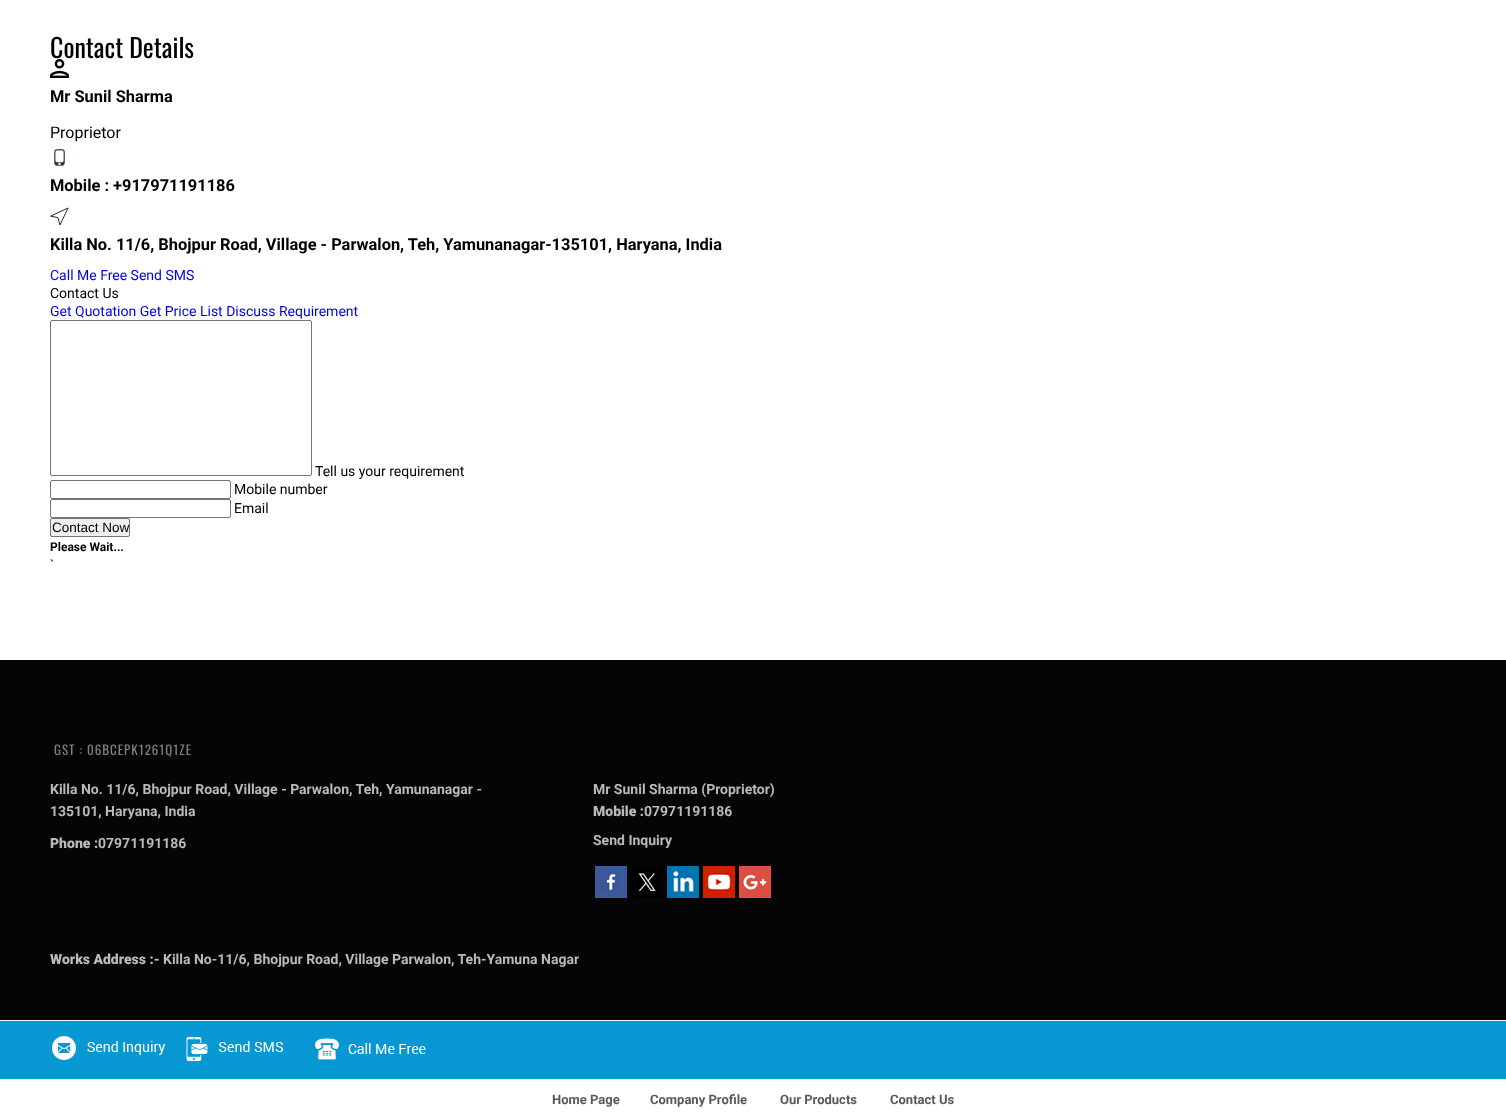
<svg xmlns="http://www.w3.org/2000/svg" width="1506" height="1112" viewBox="0 0 1506 1112">
  <style>
    .t1 { font: 26px Oswald; fill: #000; }
    .t2 { font: bold 16.4px Roboto; fill: #000; }
    .t3 { font: 16px Roboto; fill: #000; }
    .t4 { font: 14px Roboto; fill: #00e; }
    .t5 { font: 14px Roboto; fill: #000; }
    .t6 { font: 13.5px Liberation Sans; fill: #000; }
    .t7 { font: bold 12px Roboto; fill: #000; }
    .t8 { font: 13px Oswald; letter-spacing: 1px; fill: #817e7e; }
    .t9 { font: bold 14px Roboto; fill: #bababa; }
    .t10 { font: 900 14px Roboto; fill: #bababa; }
    .t11 { font: bold 13px Roboto; fill: #595959; }
  </style>
  <rect width="100%" height="100%" fill="#fff"/>
  <text x="50" y="58" class="t1">Contact Details</text>
  <image x="50" y="59" width="19" height="19" href="images/1.png"/>
  <text x="50" y="102" class="t2">Mr Sunil Sharma</text>
  <text x="50" y="138" class="t3">Proprietor</text>
  <image x="54" y="149" width="11" height="17" href="images/2.png"/>
  <text x="50" y="191" class="t2">Mobile : +917971191186</text>
  <path d="M51 216L68 208L60 225L58 218Z" fill="none" stroke="#121212" stroke-width="0.9" stroke-linecap="round" stroke-linejoin="round"/>
  <text x="50" y="250" class="t2">Killa No. 11/6, Bhojpur Road, Village - Parwalon, Teh, Yamunanagar-135101, Haryana, India</text>
  <text x="50" y="280" class="t4">Call Me Free Send SMS</text>
  <text x="50" y="298" class="t5">Contact Us</text>
  <text x="50" y="316" class="t4">Get Quotation Get Price List Discuss Requirement</text>
  <rect x="50.5" y="320.5" width="261" height="155" rx="1.5" fill="none" stroke="#767676"/>
  <text x="315" y="476" class="t5">Tell us your requirement</text>
  <rect x="50.5" y="480.5" width="180" height="18" rx="1.5" fill="none" stroke="#767676"/>
  <text x="234" y="494" class="t5">Mobile number</text>
  <rect x="50.5" y="499.5" width="180" height="18" rx="1.5" fill="none" stroke="#767676"/>
  <text x="234" y="513" class="t5">Email</text>
  <rect x="50.5" y="518.5" width="79" height="18" rx="1.5" fill="#efefef" stroke="#767676"/>
  <text x="52" y="532" class="t6">Contact Now</text>
  <text x="50" y="551" class="t7">Please Wait...</text>
  <text x="50" y="570" class="t5">`</text>
  <rect x="0" y="660" width="1506" height="360" fill="#050505"/>
  <text x="54" y="755" class="t8">GST : 06BCEPK1261Q1ZE</text>
  <text x="50" y="794" class="t9">Killa No. 11/6, Bhojpur Road, Village - Parwalon, Teh, Yamunanagar -</text>
  <text x="50" y="816" class="t9">135101, Haryana, India</text>
  <text x="50" y="848" class="t10">Phone :</text>
  <text x="98" y="848" class="t9">07971191186</text>
  <text x="593" y="794" class="t9">Mr Sunil Sharma (Proprietor)</text>
  <text x="593" y="816" class="t10">Mobile :</text>
  <text x="644" y="816" class="t9">07971191186</text>
  <text x="593" y="845" class="t9">Send Inquiry</text>
  <image x="595" y="866" width="32" height="32" href="images/3.png"/>
  <image x="632" y="867" width="31" height="31" href="images/4.png"/>
  <image x="667" y="866" width="32" height="32" href="images/5.png"/>
  <image x="703" y="866" width="32" height="32" href="images/6.png"/>
  <image x="739" y="866" width="32" height="32" href="images/7.png"/>
  <text x="50" y="964" class="t10">Works Address :-</text>
  <text x="163" y="964" class="t9">Killa No-11/6, Bhojpur Road, Village Parwalon, Teh-Yamuna Nagar</text>
  <rect x="0" y="1021" width="1506" height="58" fill="#0797d3"/>
  <image x="52" y="1036" width="114" height="24" href="images/8.png"/>
  <image x="186" y="1037" width="98" height="24" href="images/9.png"/>
  <image x="315" y="1038" width="111" height="22" href="images/10.png"/>
  <text x="552" y="1104" class="t11">Home Page</text>
  <text x="650" y="1104" class="t11">Company Profile</text>
  <text x="780" y="1104" class="t11">Our Products</text>
  <text x="890" y="1104" class="t11">Contact Us</text>
</svg>
